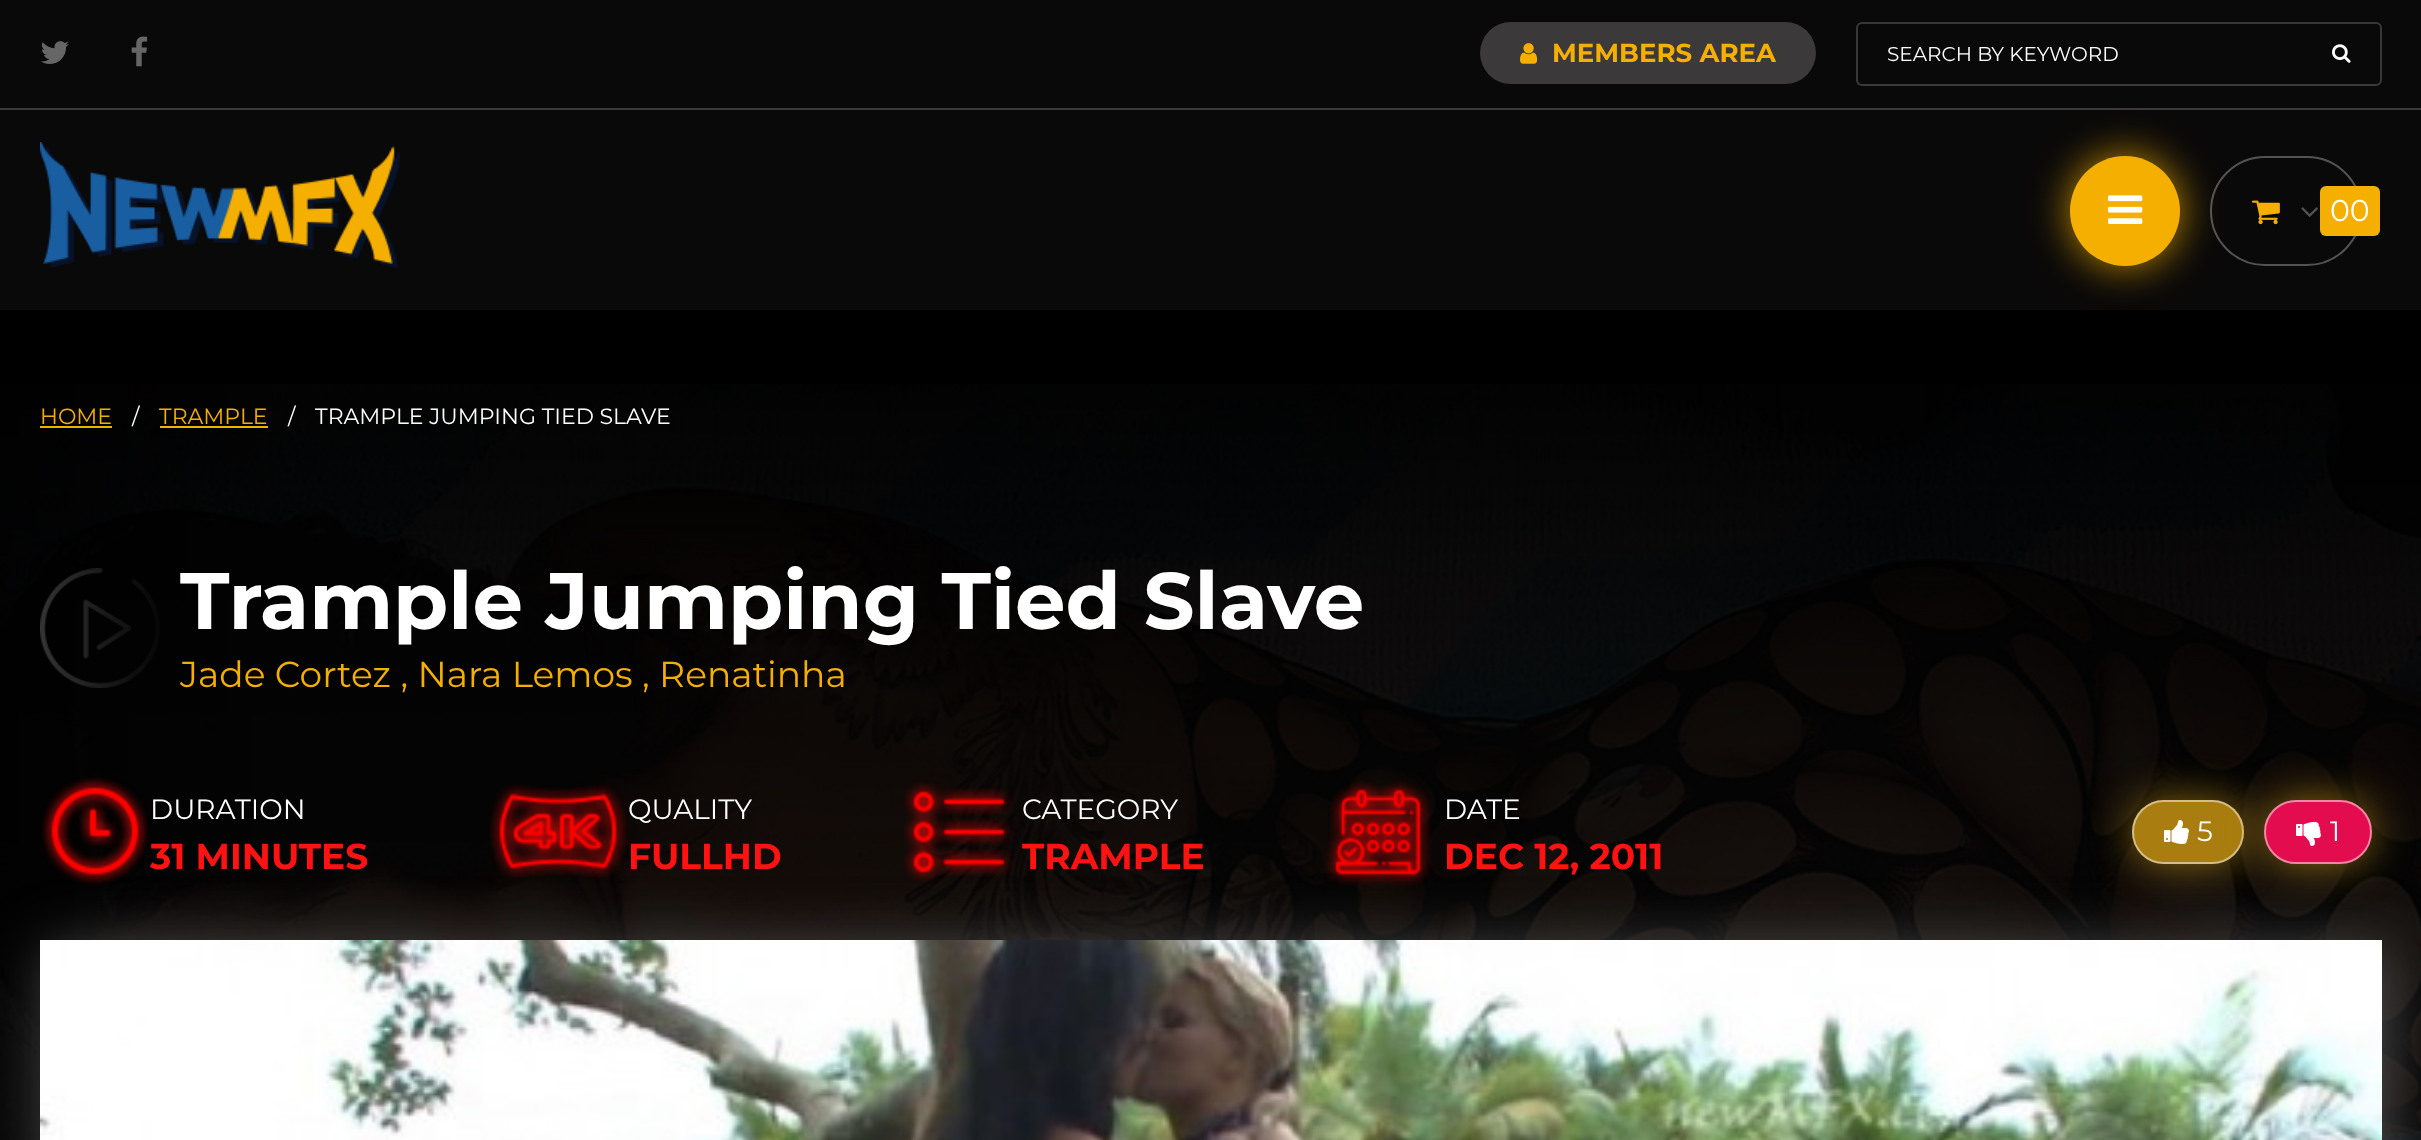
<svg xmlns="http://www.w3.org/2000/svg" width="2421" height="1140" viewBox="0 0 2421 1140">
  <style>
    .t1 { font: bold 26px Montserrat; fill: #f5af00; }
    .t2 { font: 20px Montserrat; fill: #fff; }
    .t3 { font: 30px Montserrat; fill: #fff; }
    .t4 { font: 22px Montserrat; fill: #f5af00; }
    .t5 { font: 22px Montserrat; fill: #fff; }
    .t6 { font: bold 80px Montserrat; fill: #fff; }
    .t7 { font: 36px Montserrat; fill: #f5af00; }
    .t8 { font: 28px Montserrat; fill: #fff; }
    .t9 { font: bold 36px Montserrat; fill: #ff1212; }
  </style>
  <rect width="100%" height="100%" fill="#000"/>
  <rect x="0" y="0" width="2421" height="310" fill="#0a0909"/>
  <rect x="0" y="108" width="2421" height="2" fill="#3b3939"/>
  <image x="41" y="41" width="28" height="23" href="images/1.png"/>
  <image x="131" y="36" width="17" height="31" href="images/2.png"/>
  <rect x="1480" y="22" width="336" height="62" rx="31" fill="#3b3939"/>
  <image x="1520" y="43" width="18" height="21" href="images/3.png"/>
  <text x="1552" y="62" class="t1">MEMBERS AREA</text>
  <rect x="1857" y="23" width="524" height="62" rx="5" fill="none" stroke="#393837" stroke-width="2"/>
  <text x="1887" y="61" class="t2">SEARCH BY KEYWORD</text>
  <image x="2332" y="44" width="19" height="19" href="images/4.png"/>
  <image x="40" y="142" width="360" height="126" href="images/5.png"/>
  <rect x="2070" y="156" width="110" height="110" rx="55" fill="#f5af00cc" filter="blur(20px)"/>
  <circle cx="2125" cy="211" r="55" fill="#f5af00"/>
  <image x="2108" y="195" width="35" height="29" href="images/6.png"/>
  <rect x="2211" y="157" width="150" height="108" rx="54" fill="none" stroke="#ffffff4d" stroke-width="2"/>
  <image x="2252" y="200" width="28" height="25" href="images/7.png"/>
  <image x="2301" y="207" width="17" height="10" href="images/8.png"/>
  <rect x="2320" y="186" width="60" height="50" rx="6" fill="#f5af00"/>
  <text x="2330" y="221" class="t3">00</text>
  <image x="0" y="384" width="2421" height="756" href="images/9.png"/>
  <text x="40" y="424" class="t4">HOME</text>
  <rect x="40" y="426" width="72" height="2" fill="#f5af00"/>
  <text x="132" y="424" class="t5">/</text>
  <text x="159" y="424" class="t4">TRAMPLE</text>
  <rect x="160" y="426" width="108" height="2" fill="#f5af00"/>
  <text x="288" y="424" class="t5">/</text>
  <text x="315" y="424" class="t5">TRAMPLE JUMPING TIED SLAVE</text>
  <image x="40" y="568" width="120" height="120" href="images/10.png"/>
  <text x="180" y="629" class="t6">Trample Jumping Tied Slave</text>
  <text x="180" y="687" class="t7">Jade Cortez , Nara Lemos , Renatinha</text>
  <image x="40" y="776" width="110" height="110" href="images/11.png"/>
  <text x="150" y="819" class="t8">DURATION</text>
  <text x="150" y="869" class="t9">31 MINUTES</text>
  <image x="488" y="784" width="140" height="95" href="images/12.png"/>
  <text x="628" y="819" class="t8">QUALITY</text>
  <text x="628" y="869" class="t9">FULLHD</text>
  <image x="903" y="781" width="110" height="102" href="images/13.png"/>
  <text x="1022" y="819" class="t8">CATEGORY</text>
  <text x="1022" y="869" class="t9">TRAMPLE</text>
  <image x="1325" y="780" width="107" height="106" href="images/14.png"/>
  <text x="1444" y="819" class="t8">DATE</text>
  <text x="1444" y="869" class="t9">DEC 12, 2011</text>
  <rect x="2132" y="800" width="112" height="64" rx="32" fill="#a97d0fcc" filter="blur(20px)"/>
  <rect x="2132" y="800" width="112" height="64" rx="32" fill="#a97d0f"/>
  <rect x="2133" y="801" width="110" height="62" rx="31" fill="none" stroke="#ffffff80" stroke-width="2"/>
  <image x="2164" y="820" width="25" height="24" href="images/15.png"/>
  <text x="2197" y="841" class="t8">5</text>
  <rect x="2264" y="800" width="108" height="64" rx="32" fill="#a97d0fcc" filter="blur(20px)"/>
  <rect x="2264" y="800" width="108" height="64" rx="32" fill="#e30c4e"/>
  <rect x="2265" y="801" width="106" height="62" rx="31" fill="none" stroke="#ffffff80" stroke-width="2"/>
  <image x="2296" y="822" width="25" height="24" href="images/16.png"/>
  <text x="2330" y="841" class="t8">1</text>
  <rect x="48" y="948" width="2342" height="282" fill="#4c4c4c" filter="blur(30px)"/>
  <image x="40" y="940" width="2342" height="200" href="images/17.png"/>
</svg>
